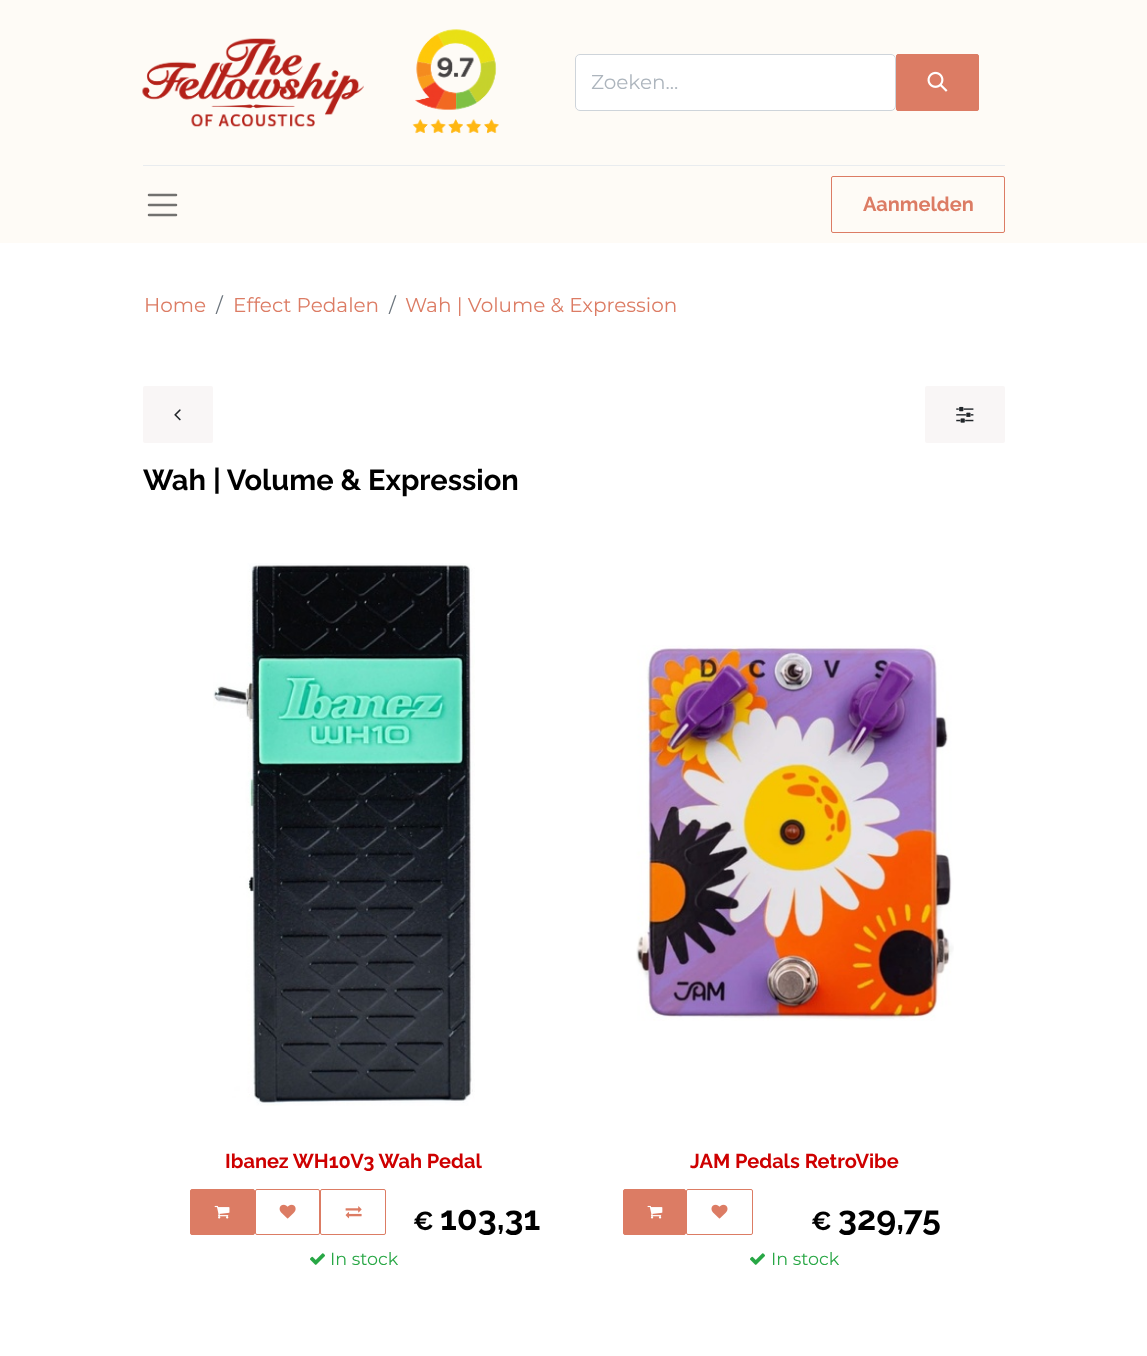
<svg xmlns="http://www.w3.org/2000/svg" width="1147" height="1356" viewBox="0 0 1147 1356">
  <style>
    .t1 { font: 20px Montserrat; fill: #adb5bd; }
    .t2 { font: bold 20px Raleway; fill: #dc7c64; }
    .t3 { font: 20px Montserrat; fill: #dc7c64; }
    .t4 { font: 20px Montserrat; fill: #6c757d; }
    .t5 { font: bold 29px Raleway; fill: #000; }
    .t6 { font: bold 20px Raleway; fill: #ce0000; }
    .t7 { font: bold 26px Raleway; fill: #000; }
    .t8 { font: bold 34px Raleway; fill: #000; }
    .t9 { font: 17.5px Montserrat; fill: #28a745; }
  </style>
  <rect width="100%" height="100%" fill="#fff"/>
  <rect x="0" y="0" width="1147" height="243" fill="#fefbf6"/>
  <image x="142" y="38" width="222" height="89" href="images/1.png"/>
  <image x="412" y="29" width="87" height="105" href="images/2.png"/>
  <rect x="575.5" y="54.5" width="320" height="56" rx="4.5" fill="#fff" stroke="#ced4da"/>
  <text x="591" y="89" class="t1">Zoeken...</text>
  <rect x="896.5" y="54.5" width="82" height="56" rx="1.5" fill="#dc7c64" stroke="#dc7c64"/>
  <image x="927" y="71" width="21" height="21" href="images/3.png"/>
  <rect x="143" y="165" width="862" height="1" fill="#e9ecef"/>
  <path d="M149 195H176M149 205H176M149 215H176" fill="none" stroke="#72716f" stroke-width="2.5" stroke-linecap="round"/>
  <rect x="831.5" y="176.5" width="173" height="56" rx="1.5" fill="none" stroke="#dc7c64"/>
  <text x="863" y="211" class="t2">Aanmelden</text>
  <text x="144" y="312" class="t3">Home</text>
  <text x="216" y="312" class="t4">/</text>
  <text x="233" y="312" class="t3">Effect Pedalen</text>
  <text x="389" y="312" class="t4">/</text>
  <text x="405" y="312" class="t3">Wah | Volume &amp; Expression</text>
  <rect x="143" y="386" width="70" height="57" rx="2" fill="#f9f6f6"/>
  <image x="174" y="409" width="7" height="12" href="images/4.png"/>
  <rect x="925" y="386" width="80" height="57" rx="2" fill="#f9f6f6"/>
  <image x="956" y="406" width="18" height="17" href="images/5.png"/>
  <text x="143" y="490" class="t5">Wah | Volume &amp; Expression</text>
  <image x="213" y="563" width="262" height="543" href="images/6.png"/>
  <text x="225" y="1168" class="t6">Ibanez WH10V3 Wah Pedal</text>
  <rect x="190.5" y="1189.5" width="64" height="45" rx="1.5" fill="#dc7c64" stroke="#dc7c64"/>
  <image x="214" y="1205" width="16" height="14" href="images/7.png"/>
  <rect x="255.5" y="1189.5" width="64" height="45" rx="1.5" fill="none" stroke="#dc7c64"/>
  <image x="279" y="1204" width="17" height="15" href="images/8.png"/>
  <rect x="320.5" y="1189.5" width="65" height="45" rx="1.5" fill="none" stroke="#dc7c64"/>
  <image x="345" y="1206" width="17" height="13" href="images/9.png"/>
  <text x="413" y="1230" class="t7">€</text>
  <text x="440" y="1230" class="t8">103,31</text>
  <image x="310" y="1253" width="15" height="12" href="images/10.png"/>
  <text x="330" y="1265" class="t9">In stock</text>
  <image x="636" y="645" width="318" height="376" href="images/11.png"/>
  <text x="690" y="1168" class="t6">JAM Pedals RetroVibe</text>
  <rect x="623.5" y="1189.5" width="62" height="45" rx="1.5" fill="#dc7c64" stroke="#dc7c64"/>
  <image x="647" y="1205" width="16" height="14" href="images/12.png"/>
  <rect x="686.5" y="1189.5" width="66" height="45" rx="1.5" fill="none" stroke="#dc7c64"/>
  <image x="711" y="1204" width="17" height="15" href="images/13.png"/>
  <text x="811" y="1230" class="t7">€</text>
  <text x="838" y="1230" class="t8">329,75</text>
  <image x="750" y="1253" width="15" height="12" href="images/10.png"/>
  <text x="771" y="1265" class="t9">In stock</text>
</svg>
